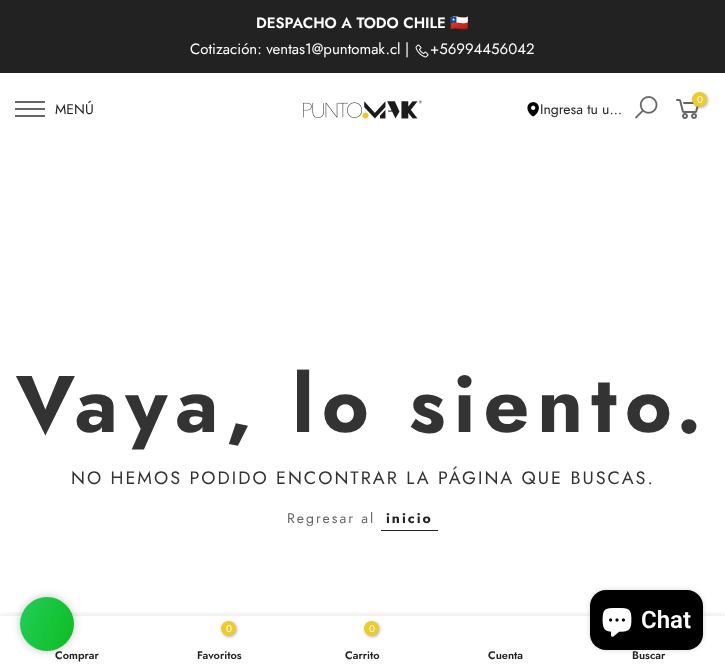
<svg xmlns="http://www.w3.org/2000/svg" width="725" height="671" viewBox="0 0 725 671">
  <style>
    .t1 { font: 600 15px Jost; fill: #fff; }
    .t2 { font: 15px Noto Color Emoji; fill: #fff; }
    .t3 { font: 15px Jost; fill: #fff; }
    .t4 { font: 14px Jost; fill: #222; }
    .t5 { font: 10px Jost; fill: #fff; }
    .t6 { font: bold 80px Jost; letter-spacing: 8px; fill: #333; }
    .t7 { font: 18px Jost; letter-spacing: 2px; fill: #333; }
    .t8 { font: 14px Jost; letter-spacing: 2px; fill: #666; }
    .t9 { font: bold 14px Jost; letter-spacing: 2px; fill: #222; }
    .t10 { font: 600 24px Roboto; fill: #fff; }
    .t11 { font: 600 11px Jost; fill: #222; }
  </style>
  <defs>
    <clipPath id="clip1"><rect x="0" y="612" width="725" height="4"/></clipPath>
    <linearGradient id="g1" gradientUnits="userSpaceOnUse" x1="14" y1="611" x2="80" y2="637"><stop offset="0" stop-color="#22ce5a"/><stop offset="0" stop-color="#22ce5a"/><stop offset="1" stop-color="#0dbc20"/></linearGradient>
  </defs>
  <rect width="100%" height="100%" fill="#fff"/>
  <rect x="0" y="0" width="725" height="73" fill="#222"/>
  <text x="256" y="28" class="t1">DESPACHO A TODO CHILE</text>
  <text x="450" y="28" class="t2">🇨🇱</text>
  <text x="190" y="54" class="t3">Cotización: ventas1@puntomak.cl |</text>
  <image x="415" y="44" width="14" height="14" href="images/1.png"/>
  <text x="430" y="54" class="t3">+56994456042</text>
  <rect x="15" y="101" width="30" height="2" fill="#666"/>
  <rect x="15" y="108" width="30" height="2" fill="#666"/>
  <rect x="15" y="115" width="30" height="2" fill="#666"/>
  <text x="55" y="114" class="t4">MENÚ</text>
  <image x="303" y="100" width="119" height="19" href="images/2.png"/>
  <image x="635" y="96" width="23" height="23" href="images/3.png"/>
  <image x="676" y="99" width="23" height="20" href="images/4.png"/>
  <rect x="693" y="93" width="15" height="15" rx="7.5" fill="#0000004d" filter="blur(1.5px)"/>
  <circle cx="699.5" cy="99.5" r="7.5" fill="#edcb2c"/>
  <text x="697" y="103" class="t5">0</text>
  <image x="527" y="102" width="12" height="15" href="images/5.png"/>
  <text x="540" y="114" class="t4">Ingresa tu u…</text>
  <text x="16" y="432" class="t6">Vaya, lo siento.</text>
  <text x="71" y="484" class="t7">NO HEMOS PODIDO ENCONTRAR LA PÁGINA QUE BUSCAS.</text>
  <text x="287" y="523" class="t8">Regresar al</text>
  <text x="386" y="523" class="t9">inicio</text>
  <rect x="381" y="530" width="57" height="1" fill="#222"/>
  <rect x="20" y="597" width="54" height="54" rx="27" fill="#c2c2c2" filter="blur(4px)"/>
  <g clip-path="url(#clip1)">
    <rect x="0" y="616" width="725" height="55" fill="#0000001f" filter="blur(4.5px)"/>
  </g>
  <circle cx="47" cy="624" r="27" fill="url(#g1)"/>
  <rect x="590" y="590" width="113" height="60" rx="16" fill="#00000026" filter="blur(2.5px)"/>
  <rect x="590" y="590" width="113" height="60" rx="16" fill="#000"/>
  <image x="602" y="608" width="30" height="29" href="images/6.png"/>
  <text x="641" y="628" class="t10">Chat</text>
  <text x="55" y="659" class="t11">Comprar</text>
  <rect x="222" y="622" width="15" height="15" rx="7.5" fill="#0000004d" filter="blur(1.5px)"/>
  <circle cx="228.5" cy="628.5" r="7.5" fill="#edcb2c"/>
  <text x="226" y="632" class="t5">0</text>
  <text x="197" y="659" class="t11">Favoritos</text>
  <rect x="365" y="622" width="15" height="15" rx="7.5" fill="#0000004d" filter="blur(1.5px)"/>
  <circle cx="371.5" cy="628.5" r="7.5" fill="#edcb2c"/>
  <text x="369" y="632" class="t5">0</text>
  <text x="345" y="659" class="t11">Carrito</text>
  <text x="488" y="659" class="t11">Cuenta</text>
  <text x="632" y="659" class="t11">Buscar</text>
</svg>
